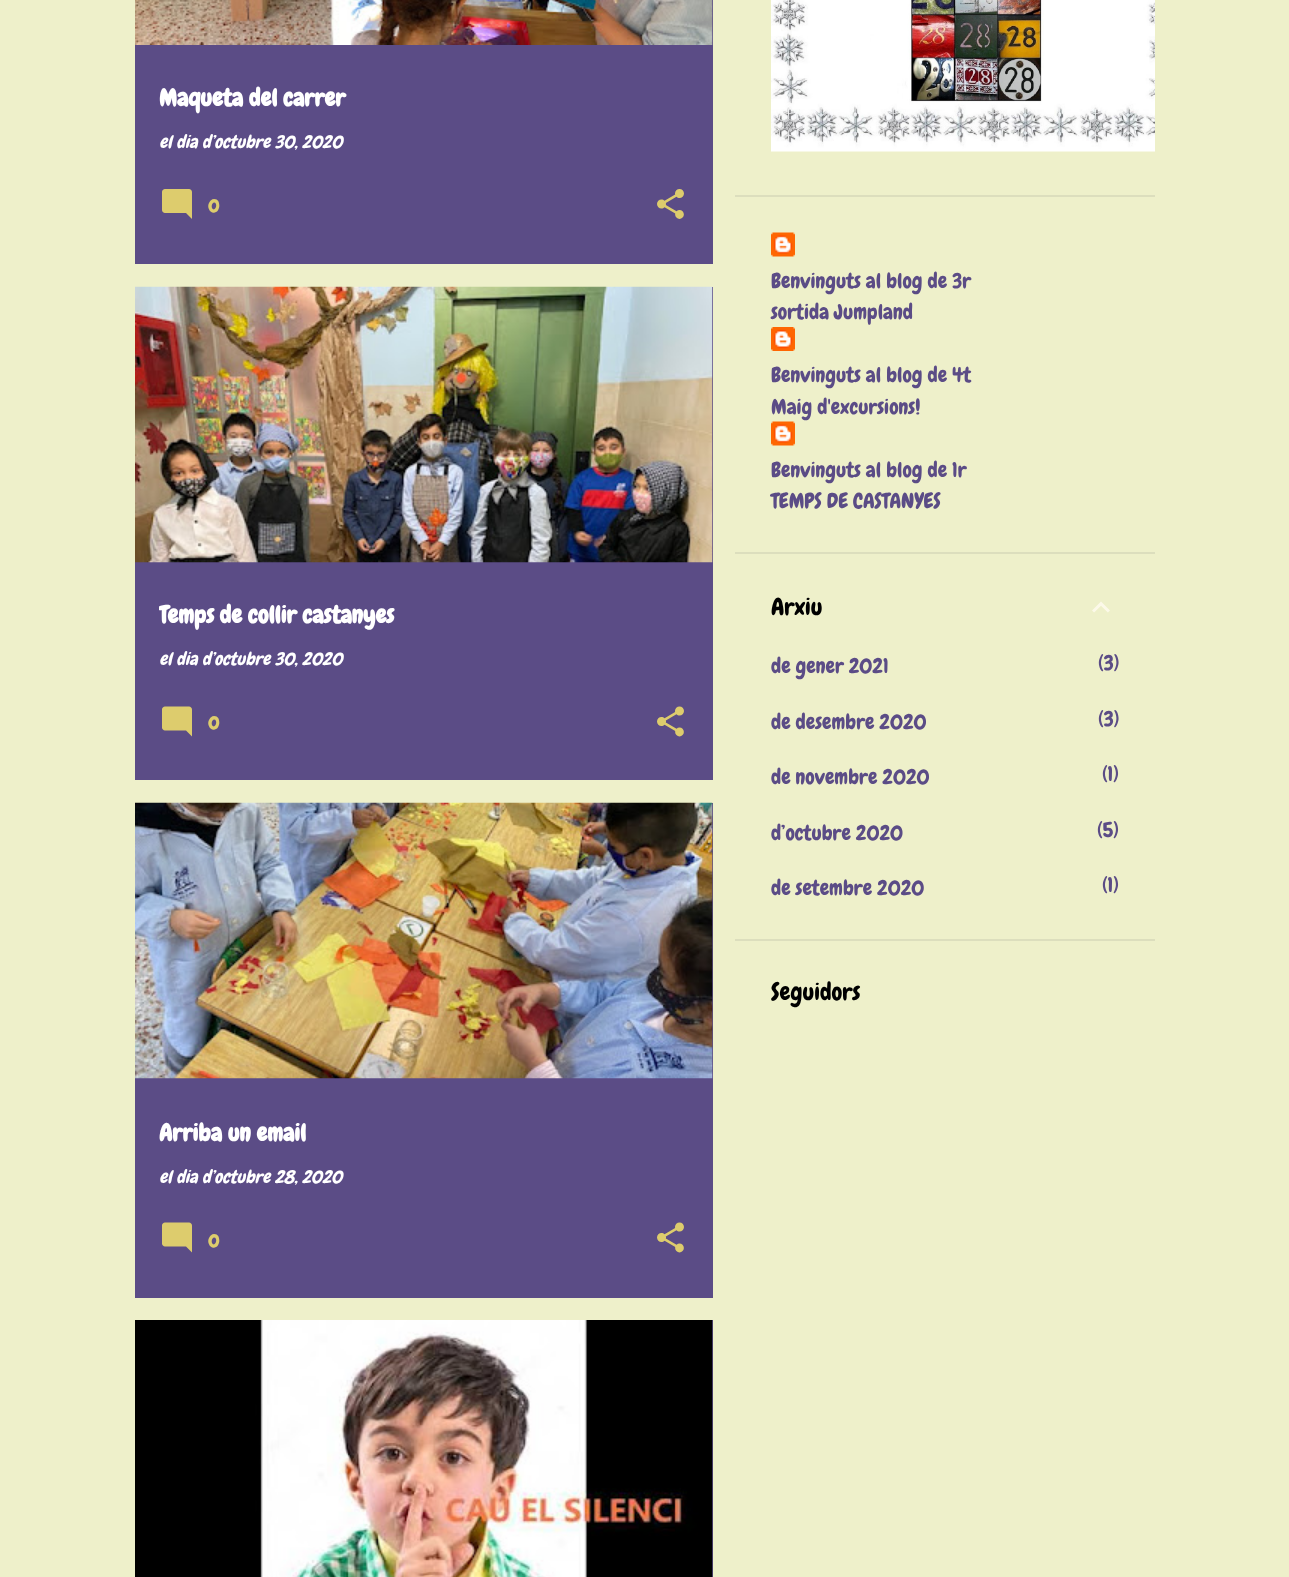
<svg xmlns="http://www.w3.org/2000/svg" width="1289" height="1577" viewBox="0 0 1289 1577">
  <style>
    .t1 { font: bold 24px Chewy; fill: #fff; }
    .t2 { font: italic 18px Chewy; fill: #fff; }
    .t3 { font: bold 18px Chewy; fill: #ddcc6d; }
    .t4 { font: 21px Chewy; fill: #5b4c86; }
    .t5 { font: 24px Chewy; fill: #000; }
  </style>
  <defs>
    <clipPath id="clip1"><rect x="159" y="599" width="530" height="36"/></clipPath>
  </defs>
  <rect width="100%" height="100%" fill="#eef0ca"/>
  <rect x="135" y="0" width="578" height="264" fill="#5b4c86"/>
  <image x="135" y="0" width="578" height="45" href="images/1.png"/>
  <text x="159" y="106" class="t1">Maqueta del carrer</text>
  <text x="159" y="148" class="t2">el dia d’octubre 30, 2020</text>
  <image x="162" y="189" width="30" height="30" href="images/2.png"/>
  <text x="208" y="212" class="t3">0</text>
  <image x="657" y="189" width="27" height="30" href="images/3.png"/>
  <rect x="135" y="287" width="578" height="493" fill="#5b4c86"/>
  <image x="135" y="286" width="578" height="277" href="images/4.png"/>
  <g clip-path="url(#clip1)">
    <text x="159" y="623" class="t1">Temps de collir castanyes</text>
  </g>
  <text x="159" y="665" class="t2">el dia d’octubre 30, 2020</text>
  <image x="162" y="706" width="30" height="31" href="images/5.png"/>
  <text x="208" y="729" class="t3">0</text>
  <image x="657" y="706" width="27" height="31" href="images/6.png"/>
  <rect x="135" y="803" width="578" height="495" fill="#5b4c86"/>
  <image x="135" y="802" width="578" height="277" href="images/7.png"/>
  <text x="159" y="1141" class="t1">Arriba un email</text>
  <text x="159" y="1183" class="t2">el dia d’octubre 28, 2020</text>
  <image x="162" y="1222" width="30" height="31" href="images/5.png"/>
  <text x="208" y="1247" class="t3">0</text>
  <image x="657" y="1222" width="27" height="31" href="images/6.png"/>
  <rect x="712" y="1320" width="1" height="257" fill="#5b4c86"/>
  <image x="135" y="1320" width="578" height="257" href="images/8.png"/>
  <image x="771" y="0" width="384" height="152" href="images/9.png"/>
  <rect x="735" y="195" width="420" height="2" fill="#dcdebd"/>
  <image x="771" y="232" width="24" height="25" href="images/10.png"/>
  <text x="771" y="288" class="t4">Benvinguts al blog de 3r</text>
  <text x="771" y="319" class="t4">sortida Jumpland</text>
  <image x="771" y="327" width="24" height="24" href="images/11.png"/>
  <text x="771" y="382" class="t4">Benvinguts al blog de 4t</text>
  <text x="771" y="414" class="t4">Maig d'excursions!</text>
  <image x="771" y="421" width="24" height="25" href="images/10.png"/>
  <text x="771" y="477" class="t4">Benvinguts al blog de 1r</text>
  <text x="771" y="508" class="t4">TEMPS DE CASTANYES</text>
  <rect x="735" y="552" width="420" height="2" fill="#dcdebd"/>
  <text x="771" y="615" class="t5">Arxiu</text>
  <image x="1092" y="601" width="18" height="12" href="images/12.png"/>
  <text x="771" y="673" class="t4">de gener 2021</text>
  <text x="1098" y="670" class="t4">(3)</text>
  <text x="771" y="729" class="t4">de desembre 2020</text>
  <text x="1098" y="726" class="t4">(3)</text>
  <text x="771" y="784" class="t4">de novembre 2020</text>
  <text x="1102" y="781" class="t4">(1)</text>
  <text x="771" y="840" class="t4">d’octubre 2020</text>
  <text x="1097" y="837" class="t4">(5)</text>
  <text x="771" y="895" class="t4">de setembre 2020</text>
  <text x="1102" y="892" class="t4">(1)</text>
  <rect x="735" y="939" width="420" height="2" fill="#dcdebd"/>
  <text x="771" y="1000" class="t5">Seguidors</text>
</svg>
